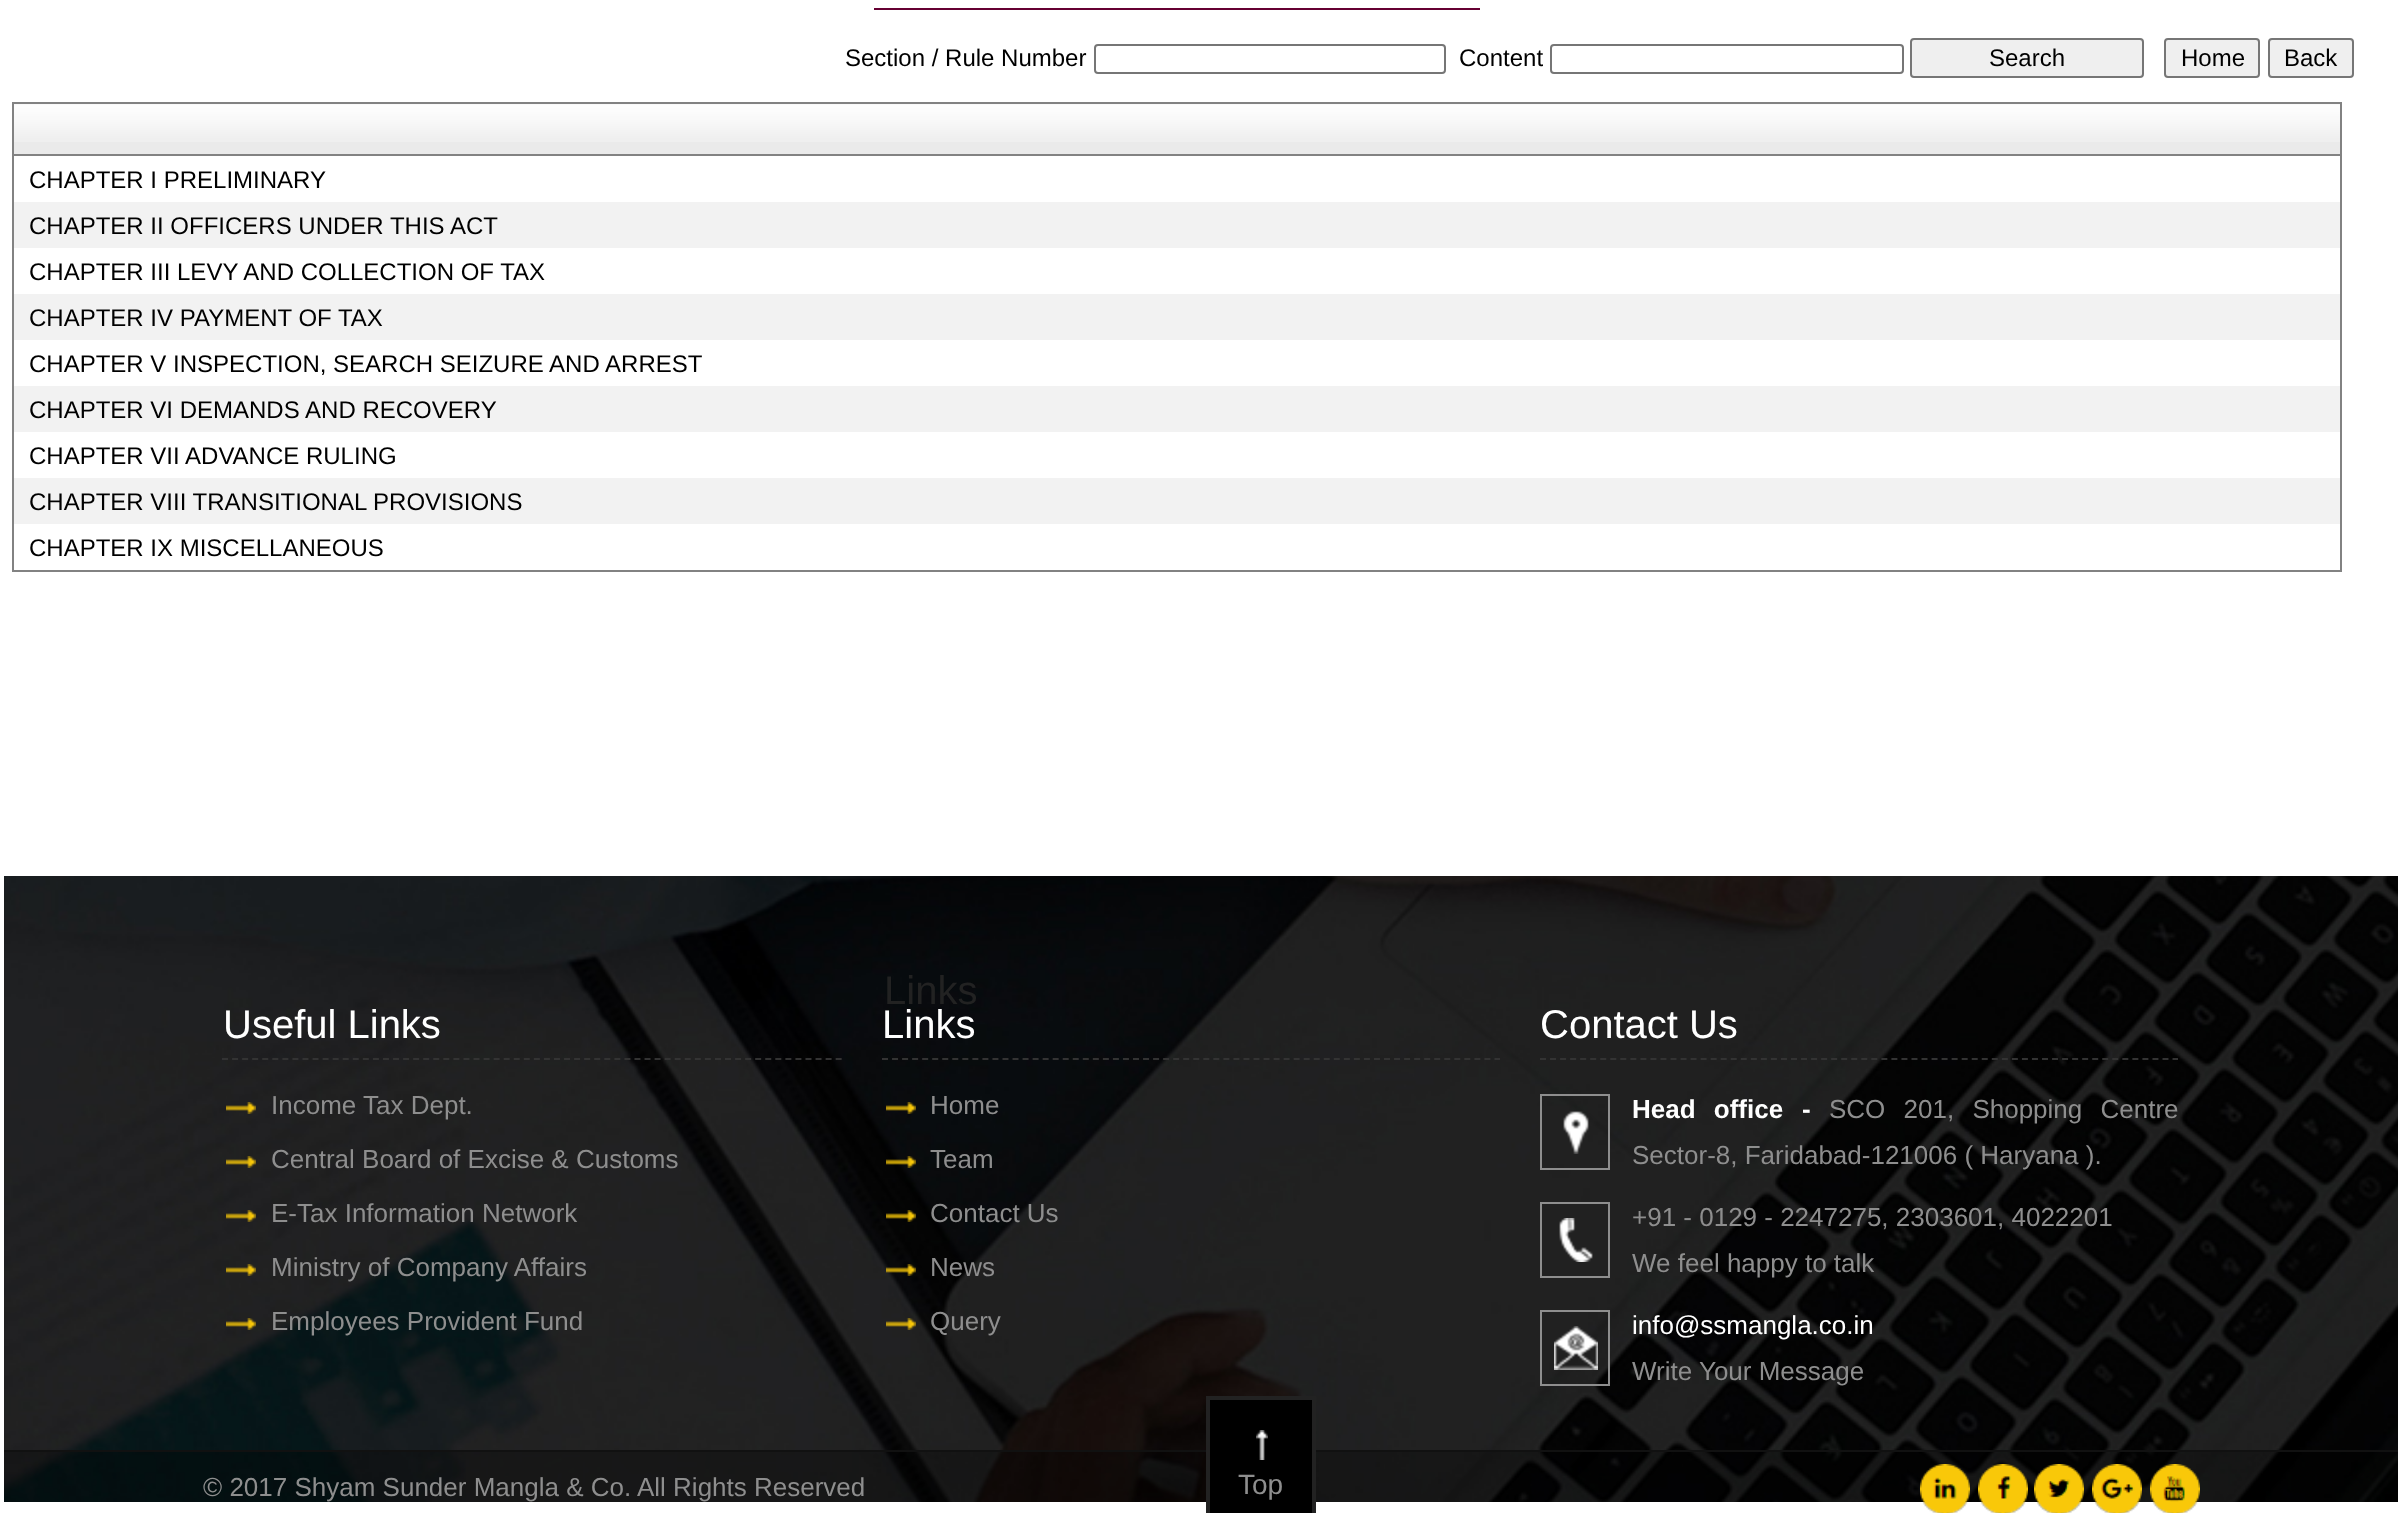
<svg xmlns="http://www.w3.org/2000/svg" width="2402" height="1513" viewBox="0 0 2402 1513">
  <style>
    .t1 { font: 24px Liberation Sans; fill: #000; }
    .t2 { font: 40px Liberation Sans; fill: #fff; }
    .t3 { font: 26px Liberation Sans; fill: #8e8e8e; }
    .t4 { font: 40px Liberation Sans; fill: #222; }
    .t5 { font: bold 26px Liberation Sans; fill: #fff; }
    .t6 { font: 26px Liberation Sans; fill: #fff; }
    .t7 { font: 28px Liberation Sans; fill: #8e8e8e; }
  </style>
  <rect width="100%" height="100%" fill="#fff"/>
  <rect x="874" y="8" width="606" height="2" fill="#603"/>
  <text x="845" y="66" class="t1">Section / Rule Number</text>
  <rect x="1095" y="45" width="350" height="28" rx="3" fill="none" stroke="#767676" stroke-width="2"/>
  <text x="1459" y="66" class="t1">Content</text>
  <rect x="1551" y="45" width="352" height="28" rx="3" fill="none" stroke="#767676" stroke-width="2"/>
  <rect x="1911" y="39" width="232" height="38" rx="3" fill="#efefef" stroke="#767676" stroke-width="2"/>
  <text x="1989" y="66" class="t1">Search</text>
  <rect x="2165" y="39" width="94" height="38" rx="3" fill="#efefef" stroke="#767676" stroke-width="2"/>
  <text x="2181" y="66" class="t1">Home</text>
  <rect x="2269" y="39" width="84" height="38" rx="3" fill="#efefef" stroke="#767676" stroke-width="2"/>
  <text x="2284" y="66" class="t1">Back</text>
  <rect x="13" y="103" width="2328" height="468" fill="none" stroke="#828282" stroke-width="2"/>
  <rect x="14" y="104" width="2326" height="50" fill="#eaeaea"/>
  <image x="14" y="104" width="2326" height="38" href="images/1.png"/>
  <rect x="14" y="154" width="2326" height="2" fill="#828282"/>
  <text x="29" y="188" class="t1">CHAPTER I PRELIMINARY</text>
  <rect x="14" y="202" width="2326" height="46" fill="#f2f2f2"/>
  <text x="29" y="234" class="t1">CHAPTER II OFFICERS UNDER THIS ACT</text>
  <text x="29" y="280" class="t1">CHAPTER III LEVY AND COLLECTION OF TAX</text>
  <rect x="14" y="294" width="2326" height="46" fill="#f2f2f2"/>
  <text x="29" y="326" class="t1">CHAPTER IV PAYMENT OF TAX</text>
  <text x="29" y="372" class="t1">CHAPTER V INSPECTION, SEARCH SEIZURE AND ARREST</text>
  <rect x="14" y="386" width="2326" height="46" fill="#f2f2f2"/>
  <text x="29" y="418" class="t1">CHAPTER VI DEMANDS AND RECOVERY</text>
  <text x="29" y="464" class="t1">CHAPTER VII ADVANCE RULING</text>
  <rect x="14" y="478" width="2326" height="46" fill="#f2f2f2"/>
  <text x="29" y="510" class="t1">CHAPTER VIII TRANSITIONAL PROVISIONS</text>
  <text x="29" y="556" class="t1">CHAPTER IX MISCELLANEOUS</text>
  <image x="4" y="876" width="2394" height="626" href="images/2.png"/>
  <path d="M222 1059H842" fill="none" stroke="#333" stroke-width="2" stroke-dasharray="6 4.06"/>
  <text x="223" y="1038" class="t2">Useful Links</text>
  <image x="226" y="1102" width="30" height="12" href="images/3.png"/>
  <text x="271" y="1114" class="t3">Income Tax Dept.</text>
  <image x="226" y="1156" width="30" height="12" href="images/4.png"/>
  <text x="271" y="1168" class="t3">Central Board of Excise &amp; Customs</text>
  <image x="226" y="1210" width="30" height="12" href="images/5.png"/>
  <text x="271" y="1222" class="t3">E-Tax Information Network</text>
  <image x="226" y="1264" width="30" height="12" href="images/6.png"/>
  <text x="271" y="1276" class="t3">Ministry of Company Affairs</text>
  <image x="226" y="1318" width="30" height="12" href="images/7.png"/>
  <text x="271" y="1330" class="t3">Employees Provident Fund</text>
  <path d="M882 1059H1500" fill="none" stroke="#333" stroke-width="2" stroke-dasharray="6 4.04"/>
  <text x="884" y="1004" class="t4">Links</text>
  <text x="882" y="1038" class="t2">Links</text>
  <image x="886" y="1102" width="30" height="12" href="images/8.png"/>
  <text x="930" y="1114" class="t3">Home</text>
  <image x="886" y="1156" width="30" height="12" href="images/9.png"/>
  <text x="930" y="1168" class="t3">Team</text>
  <image x="886" y="1210" width="30" height="12" href="images/10.png"/>
  <text x="930" y="1222" class="t3">Contact Us</text>
  <image x="886" y="1264" width="30" height="12" href="images/11.png"/>
  <text x="930" y="1276" class="t3">News</text>
  <image x="886" y="1318" width="30" height="12" href="images/12.png"/>
  <text x="930" y="1330" class="t3">Query</text>
  <path d="M1540 1059H2178" fill="none" stroke="#333" stroke-width="2" stroke-dasharray="6 4.04"/>
  <text x="1540" y="1038" class="t2">Contact Us</text>
  <rect x="1541" y="1095" width="68" height="74" fill="none" stroke="#8e8e8e" stroke-width="2"/>
  <image x="1563" y="1111" width="26" height="43" href="images/13.png"/>
  <text x="1632" y="1118" word-spacing="11" class="t5">Head office</text>
  <text x="1802" y="1118" class="t5">-</text>
  <text x="1829" y="1118" word-spacing="11" class="t3">SCO 201, Shopping Centre</text>
  <text x="1632" y="1164" class="t3">Sector-8, Faridabad-121006 ( Haryana ).</text>
  <rect x="1541" y="1203" width="68" height="74" fill="none" stroke="#8e8e8e" stroke-width="2"/>
  <image x="1559" y="1218" width="34" height="44" href="images/14.png"/>
  <text x="1632" y="1226" class="t3">+91 - 0129 - 2247275, 2303601, 4022201</text>
  <text x="1632" y="1272" class="t3">We feel happy to talk</text>
  <rect x="1541" y="1311" width="68" height="74" fill="none" stroke="#8e8e8e" stroke-width="2"/>
  <image x="1554" y="1326" width="44" height="44" href="images/15.png"/>
  <text x="1632" y="1334" class="t6">info@ssmangla.co.in</text>
  <text x="1632" y="1380" class="t3">Write Your Message</text>
  <rect x="4" y="1452" width="2394" height="50" fill="#0000004d"/>
  <rect x="4" y="1450" width="2394" height="2" fill="#111"/>
  <text x="203" y="1496" class="t3">© 2017 Shyam Sunder Mangla &amp; Co. All Rights Reserved</text>
  <rect x="1210" y="1400" width="102" height="113" fill="#000"/>
  <rect x="1206" y="1396" width="110" height="4" fill="#222"/>
  <rect x="1312" y="1396" width="4" height="117" fill="#222"/>
  <rect x="1206" y="1396" width="4" height="117" fill="#222"/>
  <image x="1256" y="1430" width="12" height="30" href="images/16.png"/>
  <text x="1238" y="1494" class="t7">Top</text>
  <image x="1920" y="1464" width="50" height="49" href="images/17.png"/>
  <image x="1978" y="1464" width="50" height="49" href="images/18.png"/>
  <image x="2034" y="1464" width="50" height="49" href="images/19.png"/>
  <image x="2092" y="1464" width="50" height="49" href="images/20.png"/>
  <image x="2150" y="1464" width="50" height="49" href="images/21.png"/>
</svg>
